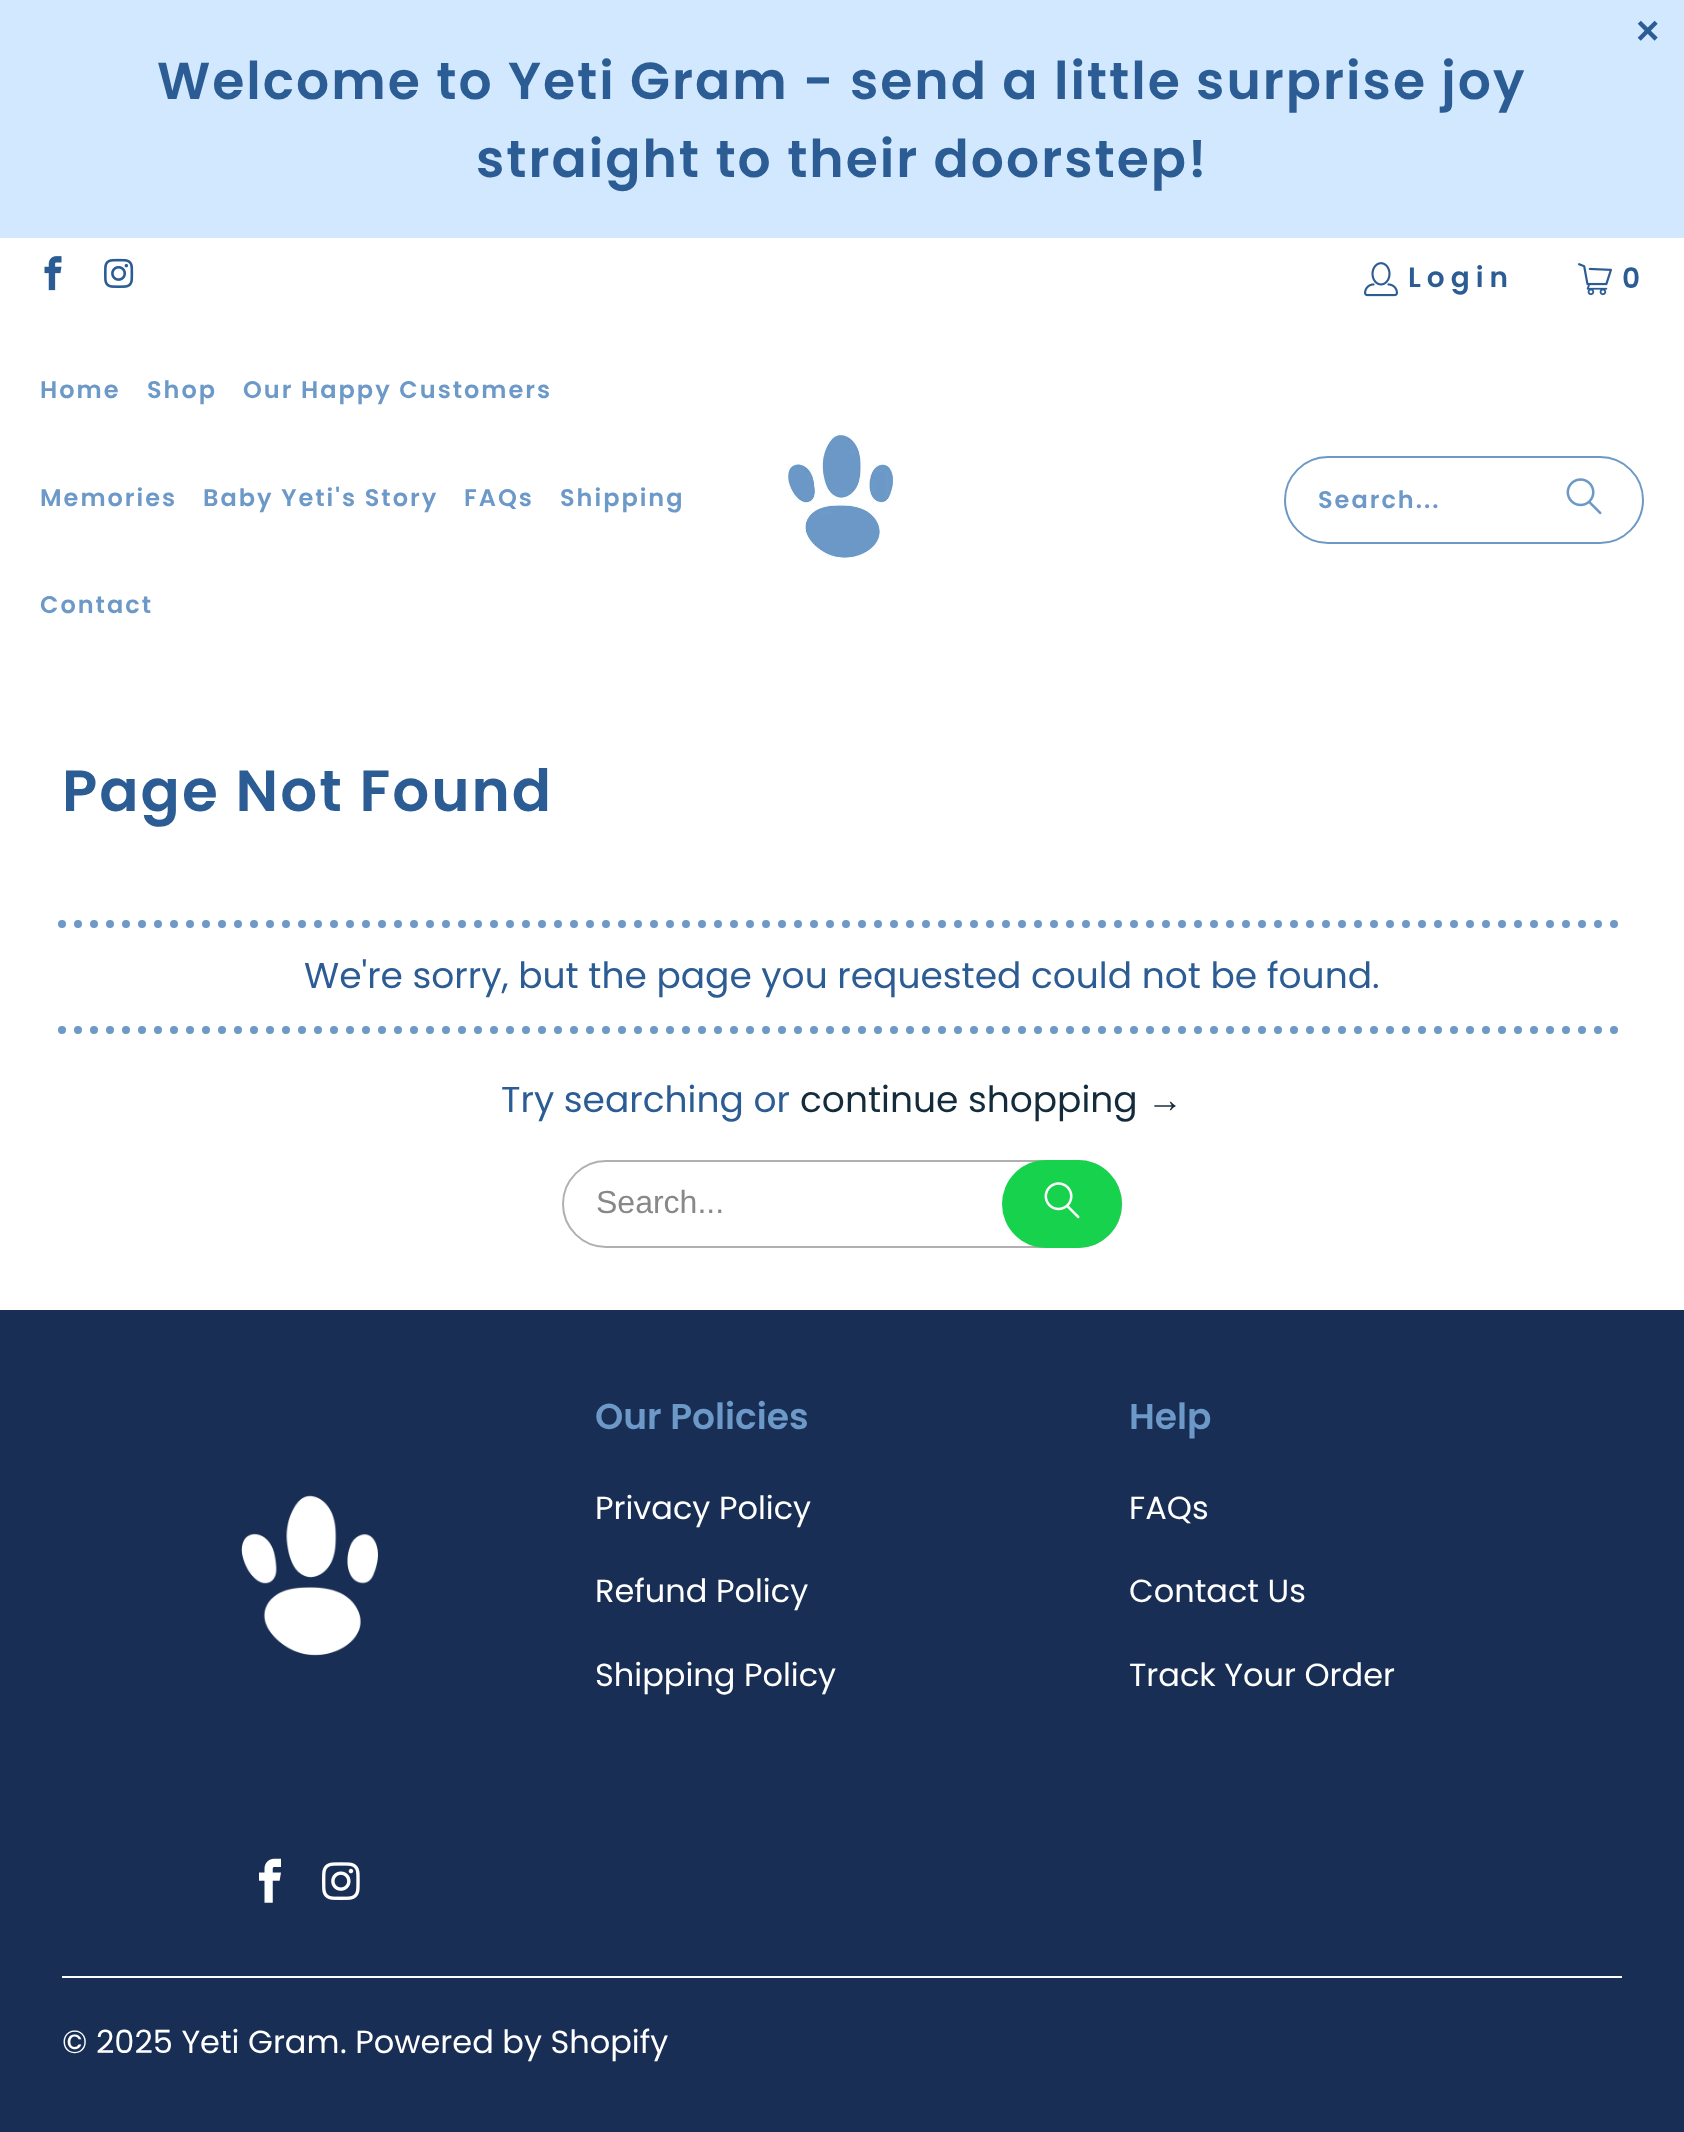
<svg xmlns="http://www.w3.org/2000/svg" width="1684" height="2132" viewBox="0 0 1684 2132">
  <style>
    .t1 { font: bold 40px Liberation Sans; letter-spacing: 2px; fill: #2c5c94; }
    .t2 { font: 600 52px Poppins; letter-spacing: 2px; fill: #2c5c94; }
    .t3 { font: 600 28px Poppins; letter-spacing: 6px; fill: #2c5c94; }
    .t4 { font: 600 24px Poppins; letter-spacing: 2px; fill: #6c99c7; }
    .t5 { font: 600 58px Poppins; letter-spacing: 2px; fill: #2c5c94; }
    .t6 { font: 36px Poppins; fill: #2c5c94; }
    .t7 { font: 36px Poppins; fill: #142b3b; }
    .t8 { font: 36px Liberation Sans; fill: #142b3b; }
    .t9 { font: 32px Liberation Sans; fill: #888; }
    .t10 { font: 600 36px Poppins; fill: #6c99c7; }
    .t11 { font: 32px Poppins; fill: #fff; }
  </style>
  <rect width="100%" height="100%" fill="#fff"/>
  <rect x="0" y="0" width="1684" height="238" fill="#d1e8ff"/>
  <text x="1636" y="44" class="t1">×</text>
  <text x="157" y="99" class="t2">Welcome to Yeti Gram - send a little surprise joy</text>
  <text x="476" y="177" class="t2">straight to their doorstep!</text>
  <image x="44" y="256" width="18" height="35" href="images/1.png"/>
  <image x="104" y="258" width="30" height="30" href="images/2.png"/>
  <image x="1364" y="262" width="34" height="35" href="images/3.png"/>
  <text x="1408" y="287" class="t3">Login</text>
  <image x="1578" y="263" width="34" height="33" href="images/4.png"/>
  <text x="1622" y="288" class="t3">0</text>
  <text x="40" y="398" class="t4">Home</text>
  <text x="147" y="398" class="t4">Shop</text>
  <text x="243" y="398" class="t4">Our Happy Customers</text>
  <text x="40" y="506" class="t4">Memories</text>
  <text x="203" y="506" class="t4">Baby Yeti's Story</text>
  <text x="464" y="506" class="t4">FAQs</text>
  <text x="560" y="506" class="t4">Shipping</text>
  <text x="40" y="613" class="t4">Contact</text>
  <image x="788" y="433" width="106" height="125" href="images/5.png"/>
  <rect x="1285" y="457" width="358" height="86" rx="43" fill="none" stroke="#6c99c7" stroke-width="2"/>
  <text x="1318" y="508" class="t4">Search...</text>
  <image x="1566" y="478" width="36" height="37" href="images/6.png"/>
  <text x="62" y="811" class="t5">Page Not Found</text>
  <path d="M62 924H1622" fill="none" stroke="#6c99c7" stroke-width="8" stroke-linecap="round" stroke-dasharray="0 16"/>
  <path d="M62 1030H1622" fill="none" stroke="#6c99c7" stroke-width="8" stroke-linecap="round" stroke-dasharray="0 16"/>
  <text x="304" y="988" class="t6">We're sorry, but the page you requested could not be found.</text>
  <text x="501" y="1112" class="t6">Try searching or</text>
  <text x="800" y="1112" class="t7">continue shopping</text>
  <text x="1147" y="1112" class="t8">→</text>
  <rect x="563" y="1161" width="558" height="86" rx="43" fill="none" stroke="#b0b0b0" stroke-width="2"/>
  <text x="596" y="1213" class="t9">Search...</text>
  <rect x="1002" y="1160" width="120" height="88" rx="44" fill="#17d24c"/>
  <image x="1044" y="1182" width="36" height="37" href="images/7.png"/>
  <rect x="0" y="1310" width="1684" height="822" fill="#182e54"/>
  <image x="241" y="1495" width="137" height="161" href="images/8.png"/>
  <image x="259" y="1858" width="22" height="45" href="images/9.png"/>
  <image x="322" y="1862" width="38" height="38" href="images/10.png"/>
  <text x="595" y="1429" class="t10">Our Policies</text>
  <text x="595" y="1519" class="t11">Privacy Policy</text>
  <text x="595" y="1602" class="t11">Refund Policy</text>
  <text x="595" y="1686" class="t11">Shipping Policy</text>
  <text x="1129" y="1429" class="t10">Help</text>
  <text x="1129" y="1519" class="t11">FAQs</text>
  <text x="1129" y="1602" class="t11">Contact Us</text>
  <text x="1129" y="1686" class="t11">Track Your Order</text>
  <rect x="62" y="1976" width="1560" height="2" fill="#fff"/>
  <text x="62" y="2053" class="t11">© 2025 Yeti Gram</text>
  <text x="340" y="2053" class="t11">. Powered by Shopify</text>
</svg>
